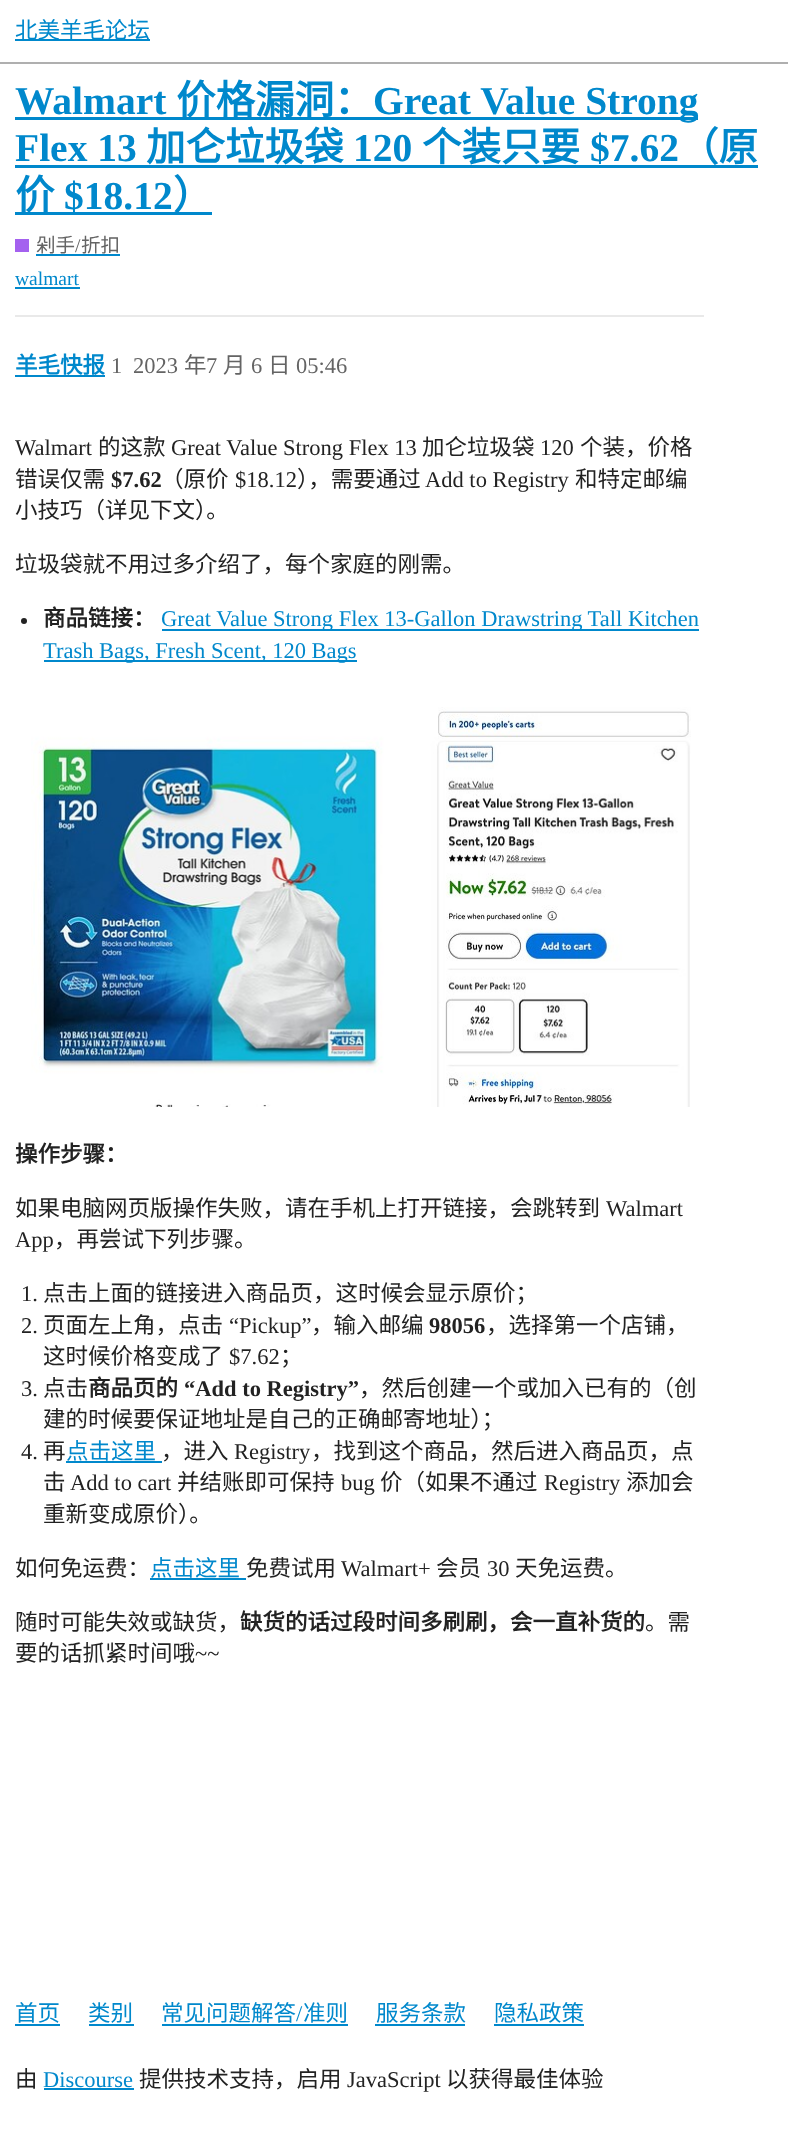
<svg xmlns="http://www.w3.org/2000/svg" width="788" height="2149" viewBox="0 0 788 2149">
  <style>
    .t1 { font: 22.5px Noto Sans CJK SC; fill: #08c; }
    .t2 { font: bold 39.5px Liberation Serif; fill: #08c; }
    .t3 { font: bold 39.5px Noto Sans CJK SC; fill: #08c; }
    .t4 { font: 19.5px Noto Sans CJK SC; fill: #646464; }
    .t5 { font: 19.5px Liberation Serif; fill: #646464; }
    .t6 { font: 19.5px Liberation Serif; fill: #08c; }
    .t7 { font: bold 22.5px Noto Sans CJK SC; fill: #08c; }
    .t8 { font: 22.5px Liberation Serif; fill: #646464; }
    .t9 { font: 22.5px Noto Sans CJK SC; fill: #646464; }
    .t10 { font: 22.5px Liberation Serif; fill: #222; }
    .t11 { font: 22.5px Noto Sans CJK SC; fill: #222; }
    .t12 { font: bold 22.5px Liberation Serif; fill: #222; }
    .t13 { font: bold 22.5px Noto Sans CJK SC; fill: #222; }
    .t14 { font: 22.5px Liberation Serif; fill: #08c; }
  </style>
  <rect width="100%" height="100%" fill="#fff"/>
  <rect x="0" y="62" width="788" height="2" fill="#afafaf"/>
  <rect x="15" y="39" width="135" height="2" fill="#08c"/>
  <text x="15" y="38" class="t1">北美羊毛论坛</text>
  <text x="15" y="114" class="t2">Walmart</text>
  <rect x="15" y="117" width="683" height="3" fill="#08c"/>
  <text x="176" y="114" class="t3">价格漏洞：</text>
  <text x="373" y="114" class="t2">Great Value Strong</text>
  <text x="15" y="161" class="t2">Flex 13</text>
  <text x="146" y="161" class="t3">加仑垃圾袋</text>
  <text x="353" y="161" class="t2">120</text>
  <rect x="15" y="165" width="743" height="3" fill="#08c"/>
  <text x="422" y="161" class="t3">个装只要</text>
  <text x="590" y="161" class="t2">$7.62</text>
  <text x="679" y="161" class="t3">（原</text>
  <rect x="15" y="212" width="197" height="3" fill="#08c"/>
  <text x="15" y="209" class="t3">价</text>
  <text x="64" y="209" class="t2">$18.12</text>
  <text x="173" y="209" class="t3">）</text>
  <rect x="15" y="239" width="14" height="13" fill="#a461ef"/>
  <text x="36" y="252" class="t4">剁手</text>
  <text x="75" y="252" class="t5">/</text>
  <rect x="36" y="254" width="84" height="2" fill="#08c"/>
  <text x="81" y="252" class="t4">折扣</text>
  <text x="15" y="285" class="t6">walmart</text>
  <rect x="15" y="287" width="65" height="2" fill="#08c"/>
  <rect x="15" y="315" width="689" height="2" fill="#e9e9e9"/>
  <text x="15" y="373" class="t7">羊毛快报</text>
  <rect x="15" y="375" width="90" height="2" fill="#08c"/>
  <text x="111" y="373" class="t8">1</text>
  <text x="133" y="373" class="t8">2023</text>
  <text x="184" y="373" class="t9">年</text>
  <text x="206" y="373" class="t8">7</text>
  <text x="223" y="373" class="t9">月</text>
  <text x="251" y="373" class="t8">6</text>
  <text x="268" y="373" class="t9">日</text>
  <text x="296" y="373" class="t8">05:46</text>
  <text x="15" y="455" class="t10">Walmart</text>
  <text x="98" y="455" class="t11">的这款</text>
  <text x="171" y="455" class="t10">Great Value Strong Flex 13</text>
  <text x="422" y="455" class="t11">加仑垃圾袋</text>
  <text x="540" y="455" class="t10">120</text>
  <text x="580" y="455" class="t11">个装，价格</text>
  <text x="15" y="487" class="t11">错误仅需</text>
  <text x="111" y="487" class="t12">$7.62</text>
  <text x="161" y="487" class="t11">（原价</text>
  <text x="235" y="487" class="t10">$18.12</text>
  <text x="297" y="487" class="t11">），需要通过</text>
  <text x="425" y="487" class="t10">Add to Registry</text>
  <text x="575" y="487" class="t11">和特定邮编</text>
  <text x="15" y="518" class="t11">小技巧（详见下文）。</text>
  <text x="15" y="572" class="t11">垃圾袋就不用过多介绍了，每个家庭的刚需。</text>
  <circle cx="24" cy="621" r="3" fill="#222"/>
  <text x="43" y="626" class="t13">商品链接：</text>
  <rect x="162" y="629" width="537" height="2" fill="#08c"/>
  <text x="161" y="626" class="t14">Great Value Strong Flex 13-Gallon Drawstring Tall Kitchen</text>
  <rect x="44" y="660" width="313" height="2" fill="#08c"/>
  <text x="43" y="658" class="t14">Trash Bags, Fresh Scent, 120 Bags</text>
  <image x="31" y="707" width="660" height="400" href="images/1.png"/>
  <text x="15" y="1162" class="t13">操作步骤：</text>
  <text x="15" y="1216" class="t11">如果电脑网页版操作失败，请在手机上打开链接，会跳转到</text>
  <text x="606" y="1216" class="t10">Walmart</text>
  <text x="15" y="1247" class="t10">App</text>
  <text x="54" y="1247" class="t11">，再尝试下列步骤。</text>
  <text x="21" y="1301" class="t10">1.</text>
  <text x="43" y="1301" class="t11">点击上面的链接进入商品页，这时候会显示原价；</text>
  <text x="21" y="1333" class="t10">2.</text>
  <text x="43" y="1333" class="t11">页面左上角，点击</text>
  <text x="229" y="1333" class="t10">“Pickup”</text>
  <text x="311" y="1333" class="t11">，输入邮编</text>
  <text x="429" y="1333" class="t12">98056</text>
  <text x="486" y="1333" class="t11">，选择第一个店铺，</text>
  <text x="43" y="1364" class="t11">这时候价格变成了</text>
  <text x="229" y="1364" class="t10">$7.62</text>
  <text x="280" y="1364" class="t11">；</text>
  <text x="21" y="1396" class="t10">3.</text>
  <text x="43" y="1396" class="t11">点击</text>
  <text x="88" y="1396" class="t13">商品页的</text>
  <text x="184" y="1396" class="t12">“Add to Registry”</text>
  <text x="359" y="1396" class="t11">，然后创建一个或加入已有的（创</text>
  <text x="43" y="1427" class="t11">建的时候要保证地址是自己的正确邮寄地址）；</text>
  <text x="21" y="1459" class="t10">4.</text>
  <text x="43" y="1459" class="t11">再</text>
  <text x="66" y="1459" class="t1">点击这里</text>
  <rect x="66" y="1461" width="96" height="2" fill="#08c"/>
  <text x="161" y="1459" class="t11">，进入</text>
  <text x="234" y="1459" class="t10">Registry</text>
  <text x="311" y="1459" class="t11">，找到这个商品，然后进入商品页，点</text>
  <text x="43" y="1490" class="t11">击</text>
  <text x="70" y="1490" class="t10">Add to cart</text>
  <text x="177" y="1490" class="t11">并结账即可保持</text>
  <text x="341" y="1490" class="t10">bug</text>
  <text x="380" y="1490" class="t11">价（如果不通过</text>
  <text x="544" y="1490" class="t10">Registry</text>
  <text x="626" y="1490" class="t11">添加会</text>
  <text x="43" y="1522" class="t11">重新变成原价）。</text>
  <text x="15" y="1576" class="t11">如何免运费：</text>
  <text x="150" y="1576" class="t1">点击这里</text>
  <rect x="150" y="1578" width="96" height="2" fill="#08c"/>
  <text x="246" y="1576" class="t11">免费试用</text>
  <text x="341" y="1576" class="t10">Walmart+</text>
  <text x="436" y="1576" class="t11">会员</text>
  <text x="487" y="1576" class="t10">30</text>
  <text x="515" y="1576" class="t11">天免运费。</text>
  <text x="15" y="1630" class="t11">随时可能失效或缺货，</text>
  <text x="240" y="1630" class="t13">缺货的话过段时间多刷刷，会一直补货的</text>
  <text x="645" y="1630" class="t11">。需</text>
  <text x="15" y="1661" class="t11">要的话抓紧时间哦</text>
  <text x="195" y="1661" class="t10">~~</text>
  <text x="15" y="2021" class="t1">首页</text>
  <rect x="15" y="2024" width="45" height="2" fill="#08c"/>
  <text x="88" y="2021" class="t1">类别</text>
  <rect x="89" y="2024" width="45" height="2" fill="#08c"/>
  <text x="161" y="2021" class="t1">常见问题解答</text>
  <text x="296" y="2021" class="t14">/</text>
  <rect x="162" y="2024" width="186" height="2" fill="#08c"/>
  <text x="303" y="2021" class="t1">准则</text>
  <text x="376" y="2021" class="t1">服务条款</text>
  <rect x="375" y="2024" width="90" height="2" fill="#08c"/>
  <text x="494" y="2021" class="t1">隐私政策</text>
  <rect x="494" y="2024" width="90" height="2" fill="#08c"/>
  <text x="15" y="2087" class="t11">由</text>
  <text x="43" y="2087" class="t14">Discourse</text>
  <rect x="44" y="2088" width="90" height="2" fill="#08c"/>
  <text x="139" y="2087" class="t11">提供技术支持，启用</text>
  <text x="347" y="2087" class="t10">JavaScript</text>
  <text x="446" y="2087" class="t11">以获得最佳体验</text>
</svg>
